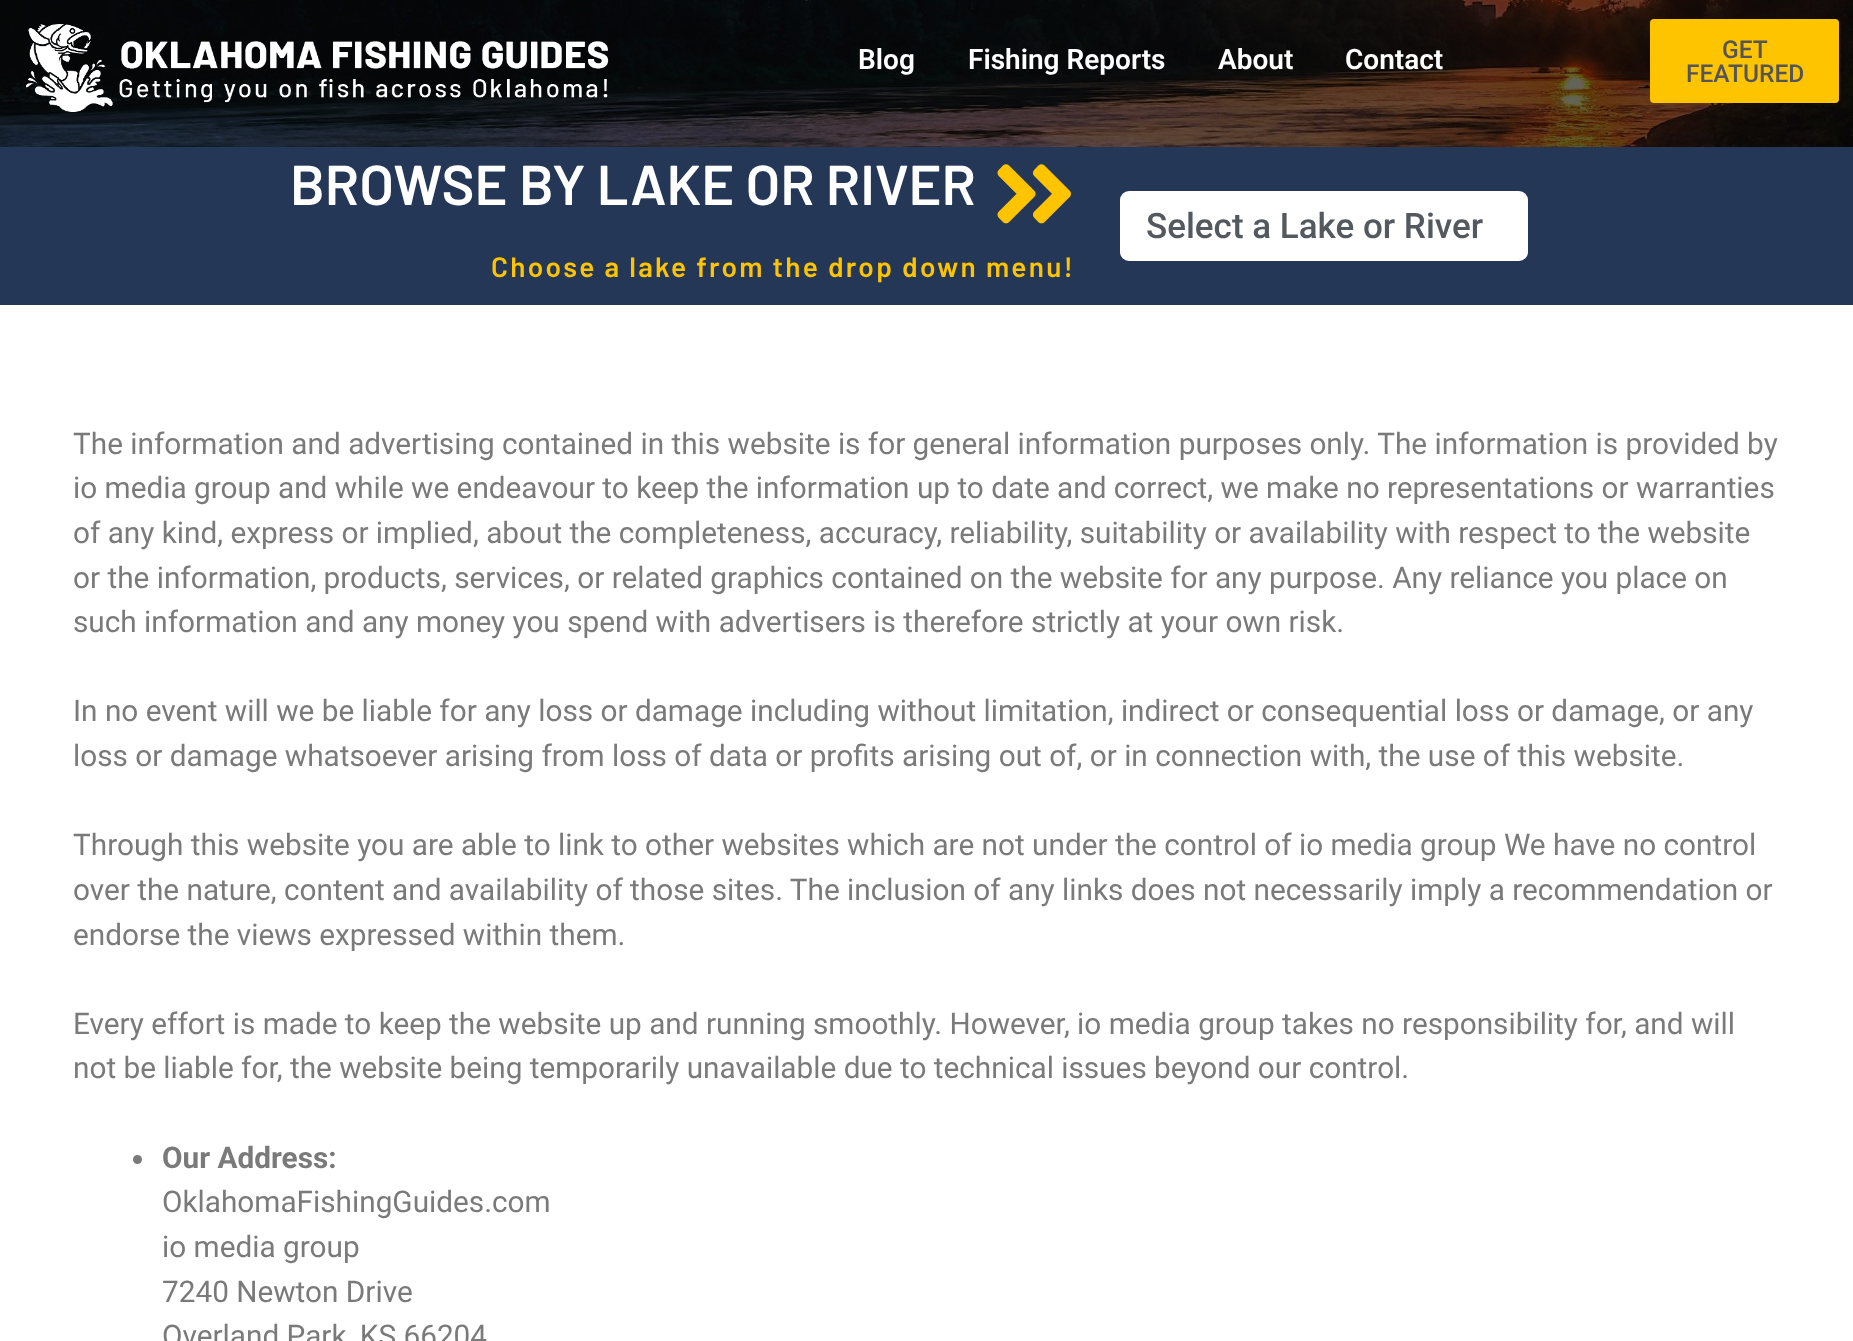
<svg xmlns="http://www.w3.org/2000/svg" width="1853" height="1341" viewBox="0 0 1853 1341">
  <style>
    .t1 { font: 600 28px Roboto; fill: #fff; }
    .t2 { font: 500 24.5px Roboto; fill: #555; }
    .t3 { font: 600 56px Barlow; fill: #fff; }
    .t4 { font: 600 28px Barlow; letter-spacing: 2.25px; fill: #ffc400; }
    .t5 { font: 500 35px Roboto; fill: #54595f; }
    .t6 { font: 29.75px Roboto; fill: #7a7a7a; }
    .t7 { font: bold 29.75px Roboto; fill: #7a7a7a; }
  </style>
  <rect width="100%" height="100%" fill="#fff"/>
  <image x="0" y="0" width="1853" height="147" href="images/1.png"/>
  <image x="26" y="24" width="583" height="88" href="images/2.png"/>
  <text x="858" y="69" class="t1">Blog</text>
  <text x="968" y="69" class="t1">Fishing Reports</text>
  <text x="1218" y="69" class="t1">About</text>
  <text x="1345" y="69" class="t1">Contact</text>
  <rect x="1650" y="19" width="189" height="84" rx="4" fill="#ffc400"/>
  <text x="1722" y="58" class="t2">GET</text>
  <text x="1686" y="82" class="t2">FEATURED</text>
  <rect x="0" y="147" width="1853" height="158" fill="#243757"/>
  <text x="290" y="205" class="t3">BROWSE BY LAKE OR RIVER</text>
  <image x="997" y="164" width="74" height="60" href="images/3.png"/>
  <text x="491" y="277" class="t4">Choose a lake from the drop down menu!</text>
  <rect x="1120" y="191" width="408" height="70" rx="9" fill="#fff"/>
  <text x="1146" y="238" class="t5">Select a Lake or River</text>
  <text x="73" y="454" class="t6">The information and advertising contained in this website is for general information purposes only. The information is provided by</text>
  <text x="73" y="498" class="t6">io media group and while we endeavour to keep the information up to date and correct, we make no representations or warranties</text>
  <text x="73" y="543" class="t6">of any kind, express or implied, about the completeness, accuracy, reliability, suitability or availability with respect to the website</text>
  <text x="73" y="588" class="t6">or the information, products, services, or related graphics contained on the website for any purpose. Any reliance you place on</text>
  <text x="73" y="632" class="t6">such information and any money you spend with advertisers is therefore strictly at your own risk.</text>
  <text x="73" y="721" class="t6">In no event will we be liable for any loss or damage including without limitation, indirect or consequential loss or damage, or any</text>
  <text x="73" y="766" class="t6">loss or damage whatsoever arising from loss of data or profits arising out of, or in connection with, the use of this website.</text>
  <text x="73" y="855" class="t6">Through this website you are able to link to other websites which are not under the control of io media group We have no control</text>
  <text x="73" y="900" class="t6">over the nature, content and availability of those sites. The inclusion of any links does not necessarily imply a recommendation or</text>
  <text x="73" y="945" class="t6">endorse the views expressed within them.</text>
  <text x="73" y="1034" class="t6">Every effort is made to keep the website up and running smoothly. However, io media group takes no responsibility for, and will</text>
  <text x="73" y="1078" class="t6">not be liable for, the website being temporarily unavailable due to technical issues beyond our control.</text>
  <circle cx="137.5" cy="1159.5" r="4.5" fill="#7a7a7a"/>
  <text x="162" y="1168" class="t7">Our Address:</text>
  <text x="162" y="1212" class="t6">OklahomaFishingGuides.com</text>
  <text x="162" y="1257" class="t6">io media group</text>
  <text x="162" y="1302" class="t6">7240 Newton Drive</text>
  <text x="162" y="1346" class="t6">Overland Park, KS 66204</text>
</svg>
